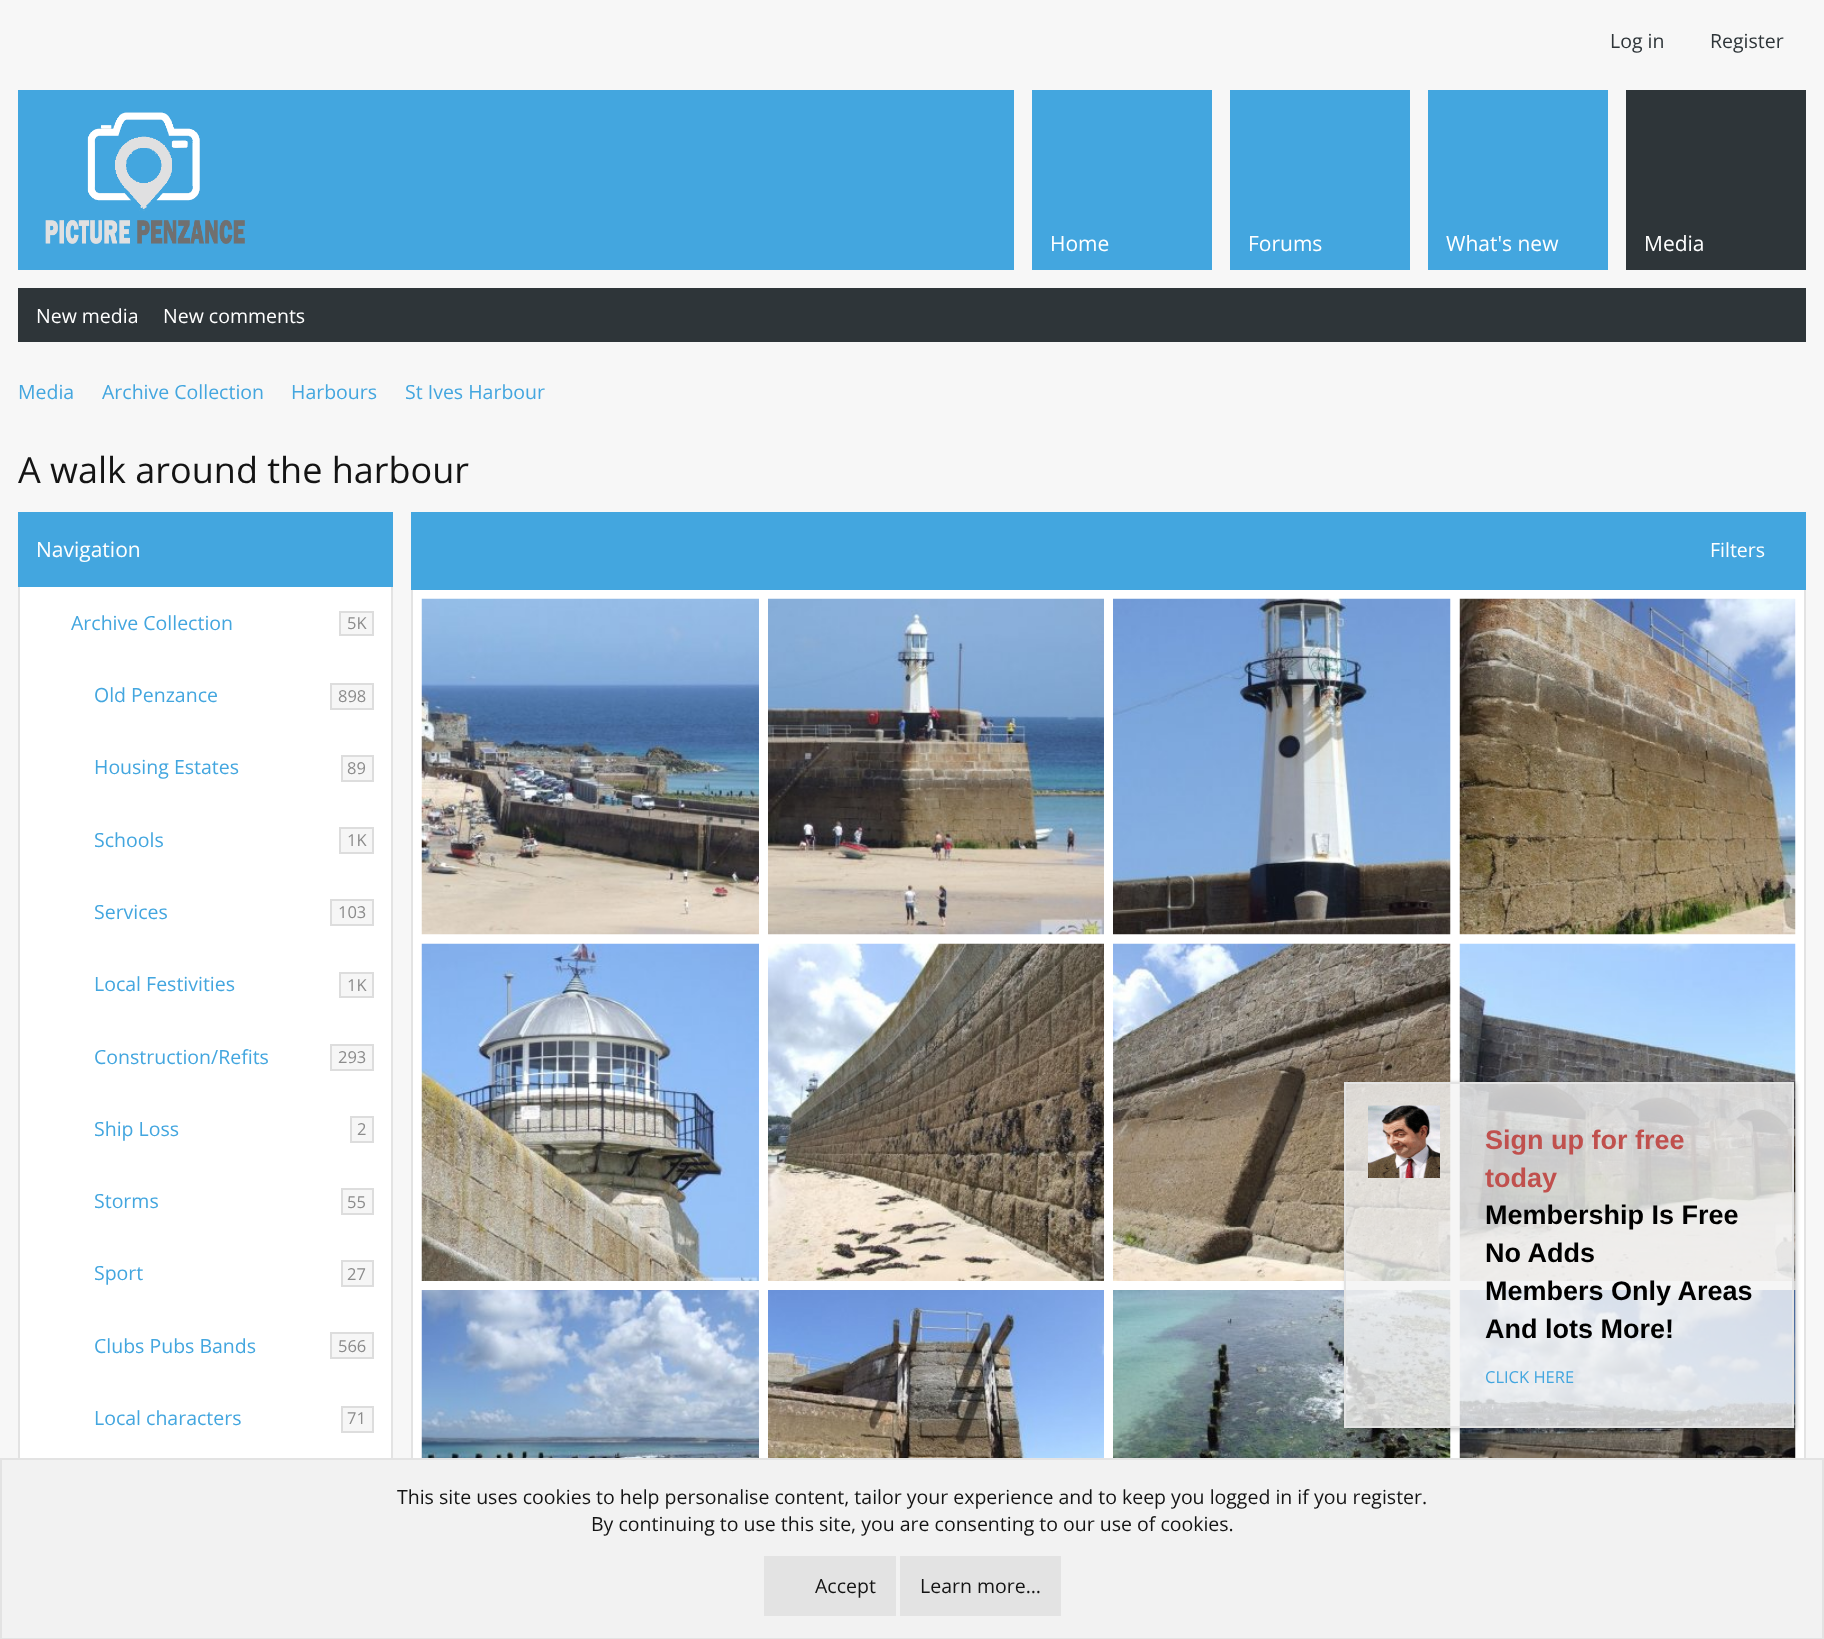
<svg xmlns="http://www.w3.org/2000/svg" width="1824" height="1639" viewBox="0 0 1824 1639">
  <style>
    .t1 { font: 19.5px Open Sans; fill: #2e3539; }
    .t2 { font: 21px Open Sans; fill: #fff; }
    .t3 { font: 19.5px Open Sans; fill: #fff; }
    .t4 { font: 19.5px Open Sans; fill: #43a6df; }
    .t5 { font: 36px Open Sans; fill: #141414; }
    .t6 { font: 16.5px Open Sans; fill: #8c8c8c; }
    .t7 { font: bold 27px Liberation Sans; fill: #c0504d; }
    .t8 { font: bold 27px Liberation Sans; fill: #000; }
    .t9 { font: 16.5px Open Sans; fill: #43a6df; }
    .t10 { font: 19.5px Open Sans; fill: #141414; }
  </style>
  <defs>
    <clipPath id="clip1"><path d="M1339 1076H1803V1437H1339ZM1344 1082H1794V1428H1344Z" clip-rule="evenodd"/></clipPath>
  </defs>
  <rect width="100%" height="100%" fill="#f7f7f7"/>
  <rect x="18" y="90" width="996" height="180" fill="#43a6df"/>
  <image x="45" y="112" width="200" height="132" href="images/1.png"/>
  <text x="1610" y="48" class="t1">Log in</text>
  <text x="1710" y="48" class="t1">Register</text>
  <rect x="1032" y="90" width="180" height="180" fill="#43a6df"/>
  <text x="1050" y="251" class="t2">Home</text>
  <rect x="1230" y="90" width="180" height="180" fill="#43a6df"/>
  <text x="1248" y="251" class="t2">Forums</text>
  <rect x="1428" y="90" width="180" height="180" fill="#43a6df"/>
  <text x="1446" y="251" class="t2">What's new</text>
  <rect x="1626" y="90" width="180" height="180" fill="#2e3539"/>
  <text x="1644" y="251" class="t2">Media</text>
  <rect x="18" y="288" width="1788" height="54" fill="#2e3539"/>
  <text x="36" y="323" class="t3">New media</text>
  <text x="163" y="323" class="t3">New comments</text>
  <text x="18" y="399" class="t4">Media</text>
  <text x="102" y="399" class="t4">Archive Collection</text>
  <text x="291" y="399" class="t4">Harbours</text>
  <text x="405" y="399" class="t4">St Ives Harbour</text>
  <text x="18" y="483" class="t5">A walk around the harbour</text>
  <rect x="20" y="587" width="371" height="871" fill="#fff"/>
  <rect x="19" y="513" width="373" height="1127" fill="none" stroke="#e3e3e3" stroke-width="2"/>
  <rect x="18" y="512" width="375" height="75" fill="#43a6df"/>
  <text x="36" y="557" class="t2">Navigation</text>
  <text x="71" y="630" class="t4">Archive Collection</text>
  <rect x="340" y="612" width="33" height="23" fill="#f6f6f6" stroke="#ddd" stroke-width="2"/>
  <text x="347" y="629" class="t6">5K</text>
  <text x="94" y="702" class="t4">Old Penzance</text>
  <rect x="331" y="684" width="42" height="25" fill="#f6f6f6" stroke="#ddd" stroke-width="2"/>
  <text x="338" y="702" class="t6">898</text>
  <text x="94" y="774" class="t4">Housing Estates</text>
  <rect x="342" y="756" width="31" height="25" fill="#f6f6f6" stroke="#ddd" stroke-width="2"/>
  <text x="347" y="774" class="t6">89</text>
  <text x="94" y="847" class="t4">Schools</text>
  <rect x="340" y="828" width="33" height="25" fill="#f6f6f6" stroke="#ddd" stroke-width="2"/>
  <text x="347" y="846" class="t6">1K</text>
  <text x="94" y="919" class="t4">Services</text>
  <rect x="331" y="900" width="42" height="25" fill="#f6f6f6" stroke="#ddd" stroke-width="2"/>
  <text x="338" y="918" class="t6">103</text>
  <text x="94" y="991" class="t4">Local Festivities</text>
  <rect x="340" y="973" width="33" height="24" fill="#f6f6f6" stroke="#ddd" stroke-width="2"/>
  <text x="347" y="991" class="t6">1K</text>
  <text x="94" y="1064" class="t4">Construction/Refits</text>
  <rect x="331" y="1045" width="42" height="25" fill="#f6f6f6" stroke="#ddd" stroke-width="2"/>
  <text x="338" y="1063" class="t6">293</text>
  <text x="94" y="1136" class="t4">Ship Loss</text>
  <rect x="351" y="1117" width="22" height="25" fill="#f6f6f6" stroke="#ddd" stroke-width="2"/>
  <text x="357" y="1135" class="t6">2</text>
  <text x="94" y="1208" class="t4">Storms</text>
  <rect x="342" y="1189" width="31" height="25" fill="#f6f6f6" stroke="#ddd" stroke-width="2"/>
  <text x="347" y="1208" class="t6">55</text>
  <text x="94" y="1280" class="t4">Sport</text>
  <rect x="342" y="1261" width="31" height="25" fill="#f6f6f6" stroke="#ddd" stroke-width="2"/>
  <text x="347" y="1280" class="t6">27</text>
  <text x="94" y="1353" class="t4">Clubs Pubs Bands</text>
  <rect x="331" y="1333" width="42" height="25" fill="#f6f6f6" stroke="#ddd" stroke-width="2"/>
  <text x="338" y="1352" class="t6">566</text>
  <text x="94" y="1425" class="t4">Local characters</text>
  <rect x="342" y="1407" width="31" height="25" fill="#f6f6f6" stroke="#ddd" stroke-width="2"/>
  <text x="347" y="1424" class="t6">71</text>
  <rect x="413" y="590" width="1391" height="868" fill="#fff"/>
  <rect x="412" y="513" width="1393" height="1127" fill="none" stroke="#e3e3e3" stroke-width="2"/>
  <rect x="411" y="512" width="1395" height="78" fill="#43a6df"/>
  <text x="1710" y="557" class="t3">Filters</text>
  <image x="421" y="598" width="338" height="337" href="images/2.png"/>
  <image x="768" y="598" width="336" height="337" href="images/3.png"/>
  <image x="1113" y="598" width="338" height="337" href="images/4.png"/>
  <image x="1459" y="598" width="337" height="337" href="images/5.png"/>
  <image x="421" y="943" width="338" height="338" href="images/6.png"/>
  <image x="768" y="943" width="336" height="338" href="images/7.png"/>
  <image x="1113" y="943" width="338" height="338" href="images/8.png"/>
  <image x="1459" y="943" width="337" height="338" href="images/9.png"/>
  <image x="421" y="1290" width="338" height="168" href="images/10.png"/>
  <image x="768" y="1290" width="336" height="168" href="images/11.png"/>
  <image x="1113" y="1290" width="338" height="168" href="images/12.png"/>
  <image x="1459" y="1290" width="337" height="168" href="images/13.png"/>
  <g clip-path="url(#clip1)">
    <rect x="1346" y="1083" width="450" height="347" fill="#00000040" filter="blur(2px)"/>
  </g>
  <rect x="1345" y="1083" width="448" height="344" fill="#f2f2f2cc" stroke="#e3e3e3" stroke-width="2"/>
  <image x="1368" y="1105" width="72" height="73" href="images/14.png"/>
  <text x="1485" y="1149" class="t7">Sign up for free</text>
  <text x="1485" y="1187" class="t7">today</text>
  <text x="1485" y="1224" class="t8">Membership Is Free</text>
  <text x="1485" y="1262" class="t8">No Adds</text>
  <text x="1485" y="1300" class="t8">Members Only Areas</text>
  <text x="1485" y="1338" class="t8">And lots More!</text>
  <text x="1485" y="1383" class="t9">CLICK HERE</text>
  <rect x="1" y="1459" width="1822" height="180" fill="#f2f2f2" stroke="#e3e3e3" stroke-width="2"/>
  <text x="397" y="1504" class="t10">This site uses cookies to help personalise content, tailor your experience and to keep you logged in if you register.</text>
  <text x="591" y="1531" class="t10">By continuing to use this site, you are consenting to our use of cookies.</text>
  <rect x="764" y="1556" width="132" height="60" fill="#e3e3e3"/>
  <text x="815" y="1593" class="t10">Accept</text>
  <rect x="900" y="1556" width="161" height="60" fill="#e3e3e3"/>
  <text x="920" y="1593" class="t10">Learn more…</text>
</svg>
